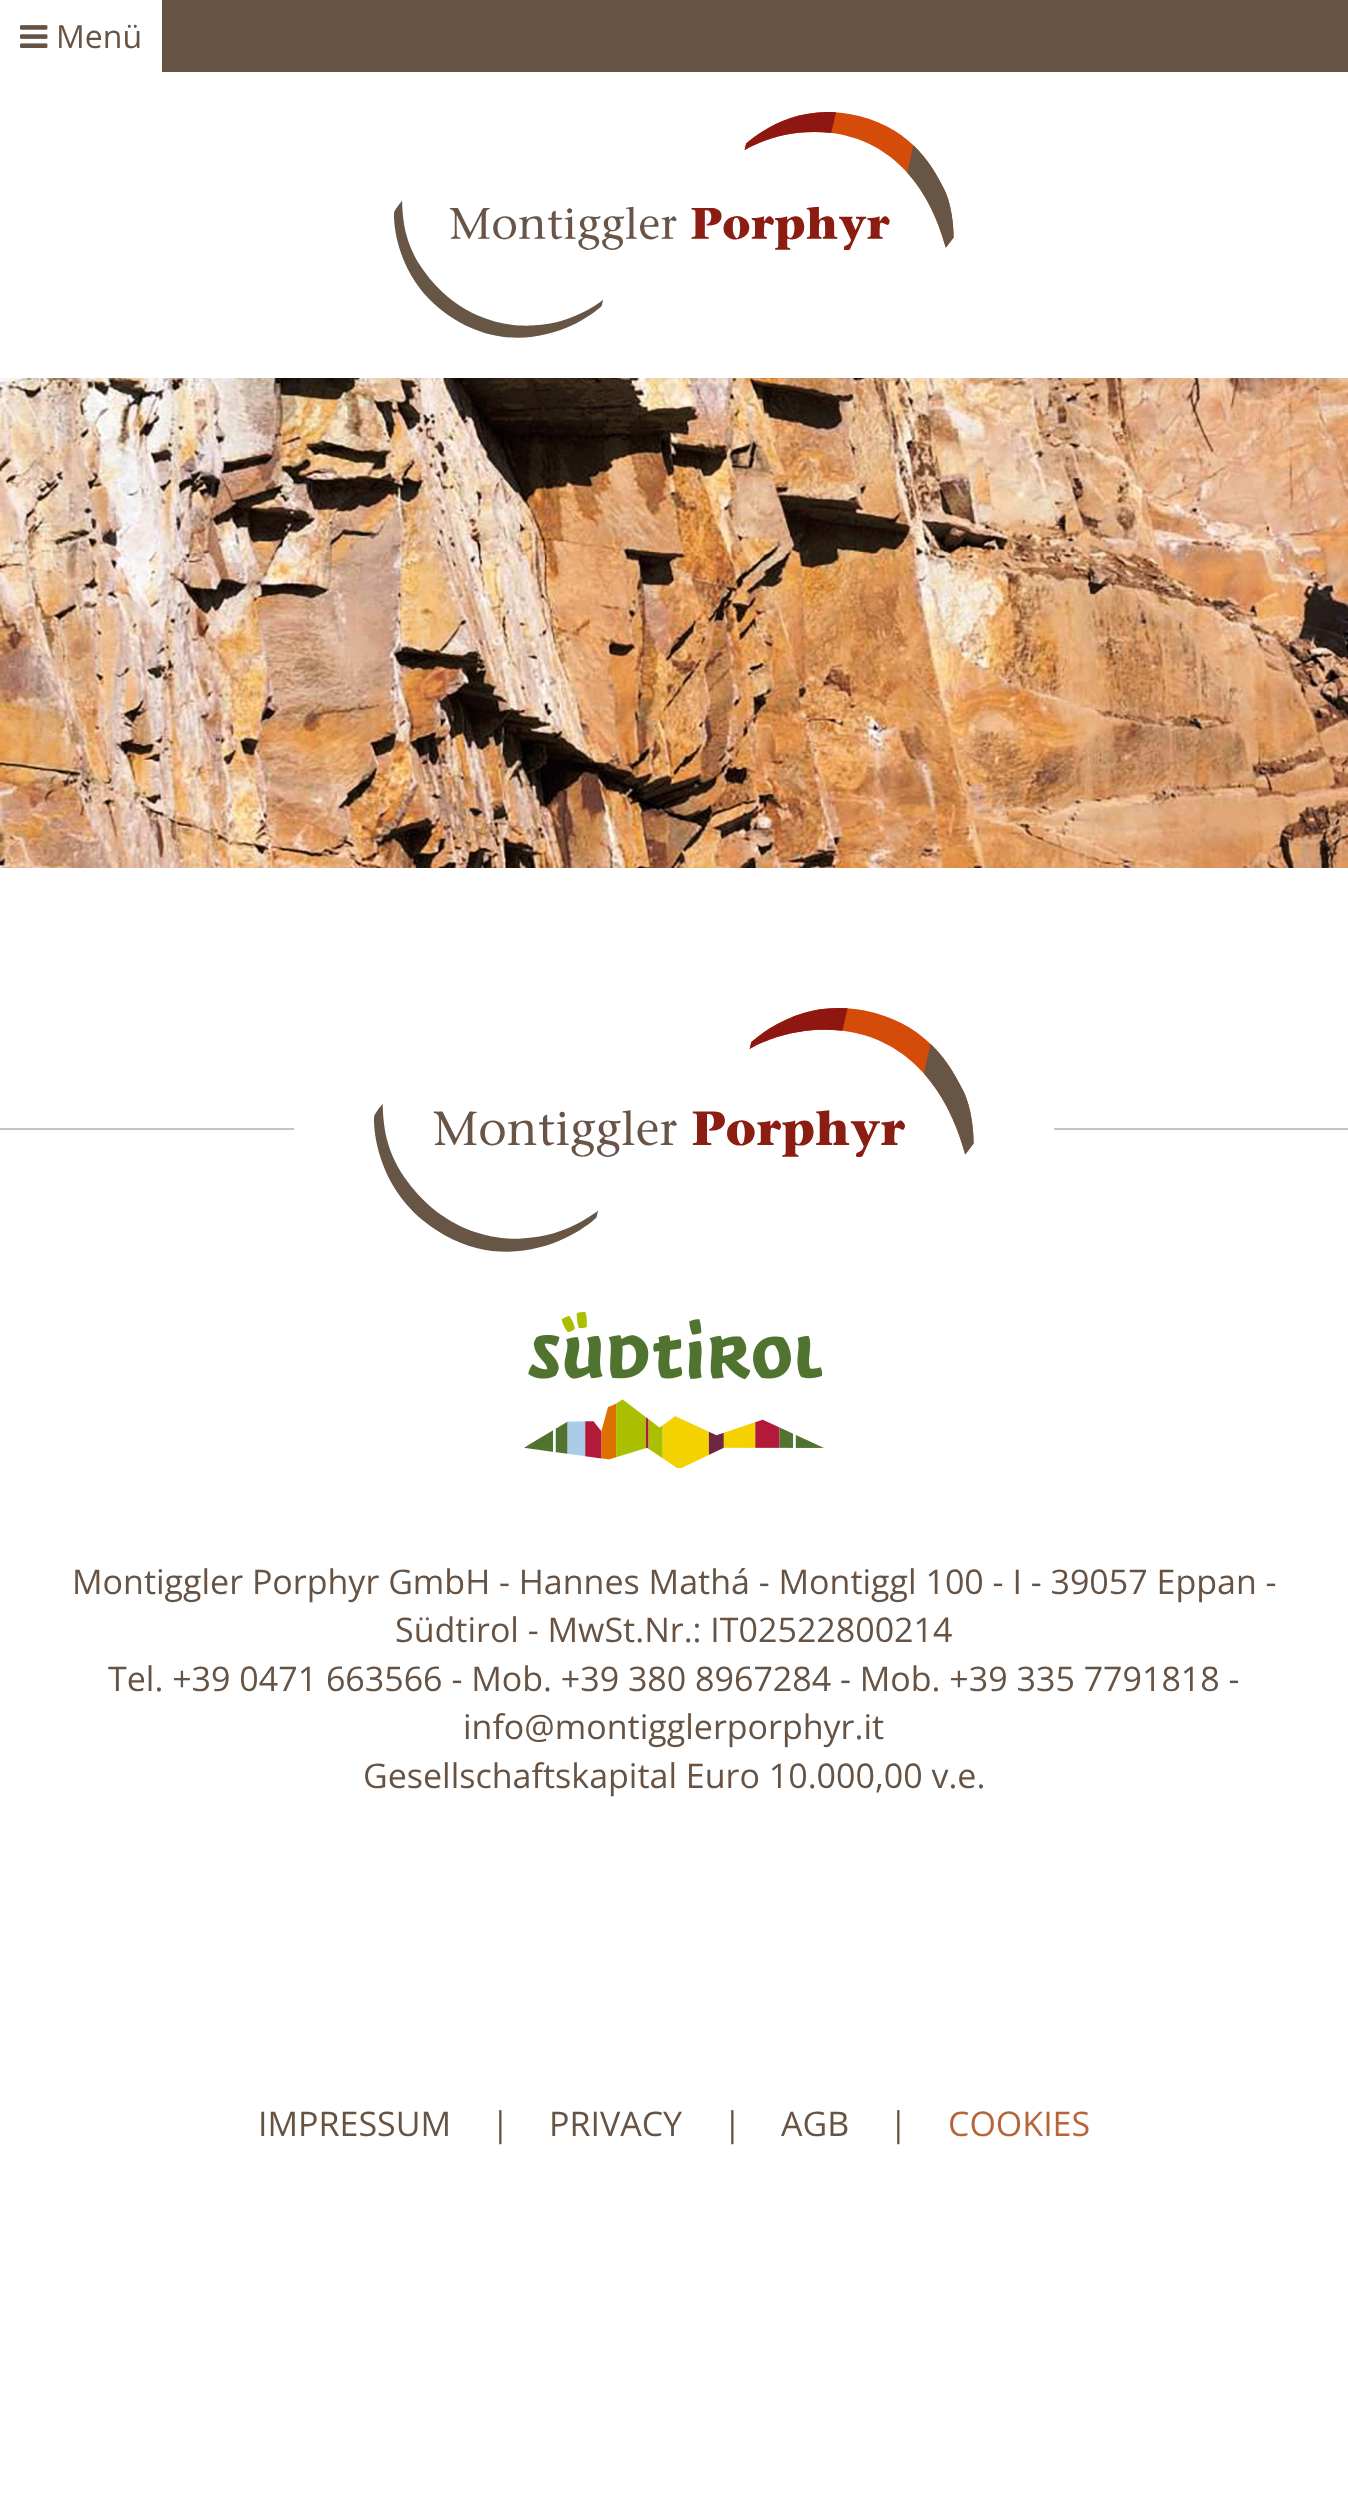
<svg xmlns="http://www.w3.org/2000/svg" width="1348" height="2520" viewBox="0 0 1348 2520">
  <style>
    .t1 { font: 32px Open Sans; fill: #665344; }
    .t2 { font: 34px Open Sans; fill: #665344; }
    .t3 { font: 34px Open Sans; fill: #b76439; }
  </style>
  <rect width="100%" height="100%" fill="#fff"/>
  <rect x="162" y="0" width="1186" height="72" fill="#665344"/>
  <image x="20" y="25" width="28" height="23" href="images/1.png"/>
  <text x="56" y="48" class="t1">Menü</text>
  <image x="394" y="112" width="560" height="226" href="images/2.png"/>
  <image x="0" y="378" width="1348" height="490" href="images/3.png"/>
  <rect x="0" y="1128" width="1348" height="2" fill="#c4c4c4"/>
  <rect x="294" y="1128" width="760" height="2" fill="#fff"/>
  <image x="374" y="1008" width="600" height="244" href="images/4.png"/>
  <image x="524" y="1312" width="300" height="156" href="images/5.png"/>
  <text x="72" y="1594" class="t2">Montiggler Porphyr GmbH - Hannes Mathá - Montiggl 100 - I - 39057 Eppan -</text>
  <text x="395" y="1642" class="t2">Südtirol - MwSt.Nr.: IT02522800214</text>
  <text x="108" y="1691" class="t2">Tel. +39 0471 663566 - Mob. +39 380 8967284 - Mob. +39 335 7791818 -</text>
  <text x="463" y="1739" class="t2">info@montigglerporphyr.it</text>
  <text x="363" y="1788" class="t2">Gesellschaftskapital Euro 10.000,00 v.e.</text>
  <text x="258" y="2136" class="t2">IMPRESSUM</text>
  <text x="491" y="2136" class="t2">|</text>
  <text x="549" y="2136" class="t2">PRIVACY</text>
  <text x="723" y="2136" class="t2">|</text>
  <text x="781" y="2136" class="t2">AGB</text>
  <text x="889" y="2136" class="t2">|</text>
  <text x="948" y="2136" class="t3">COOKIES</text>
</svg>
